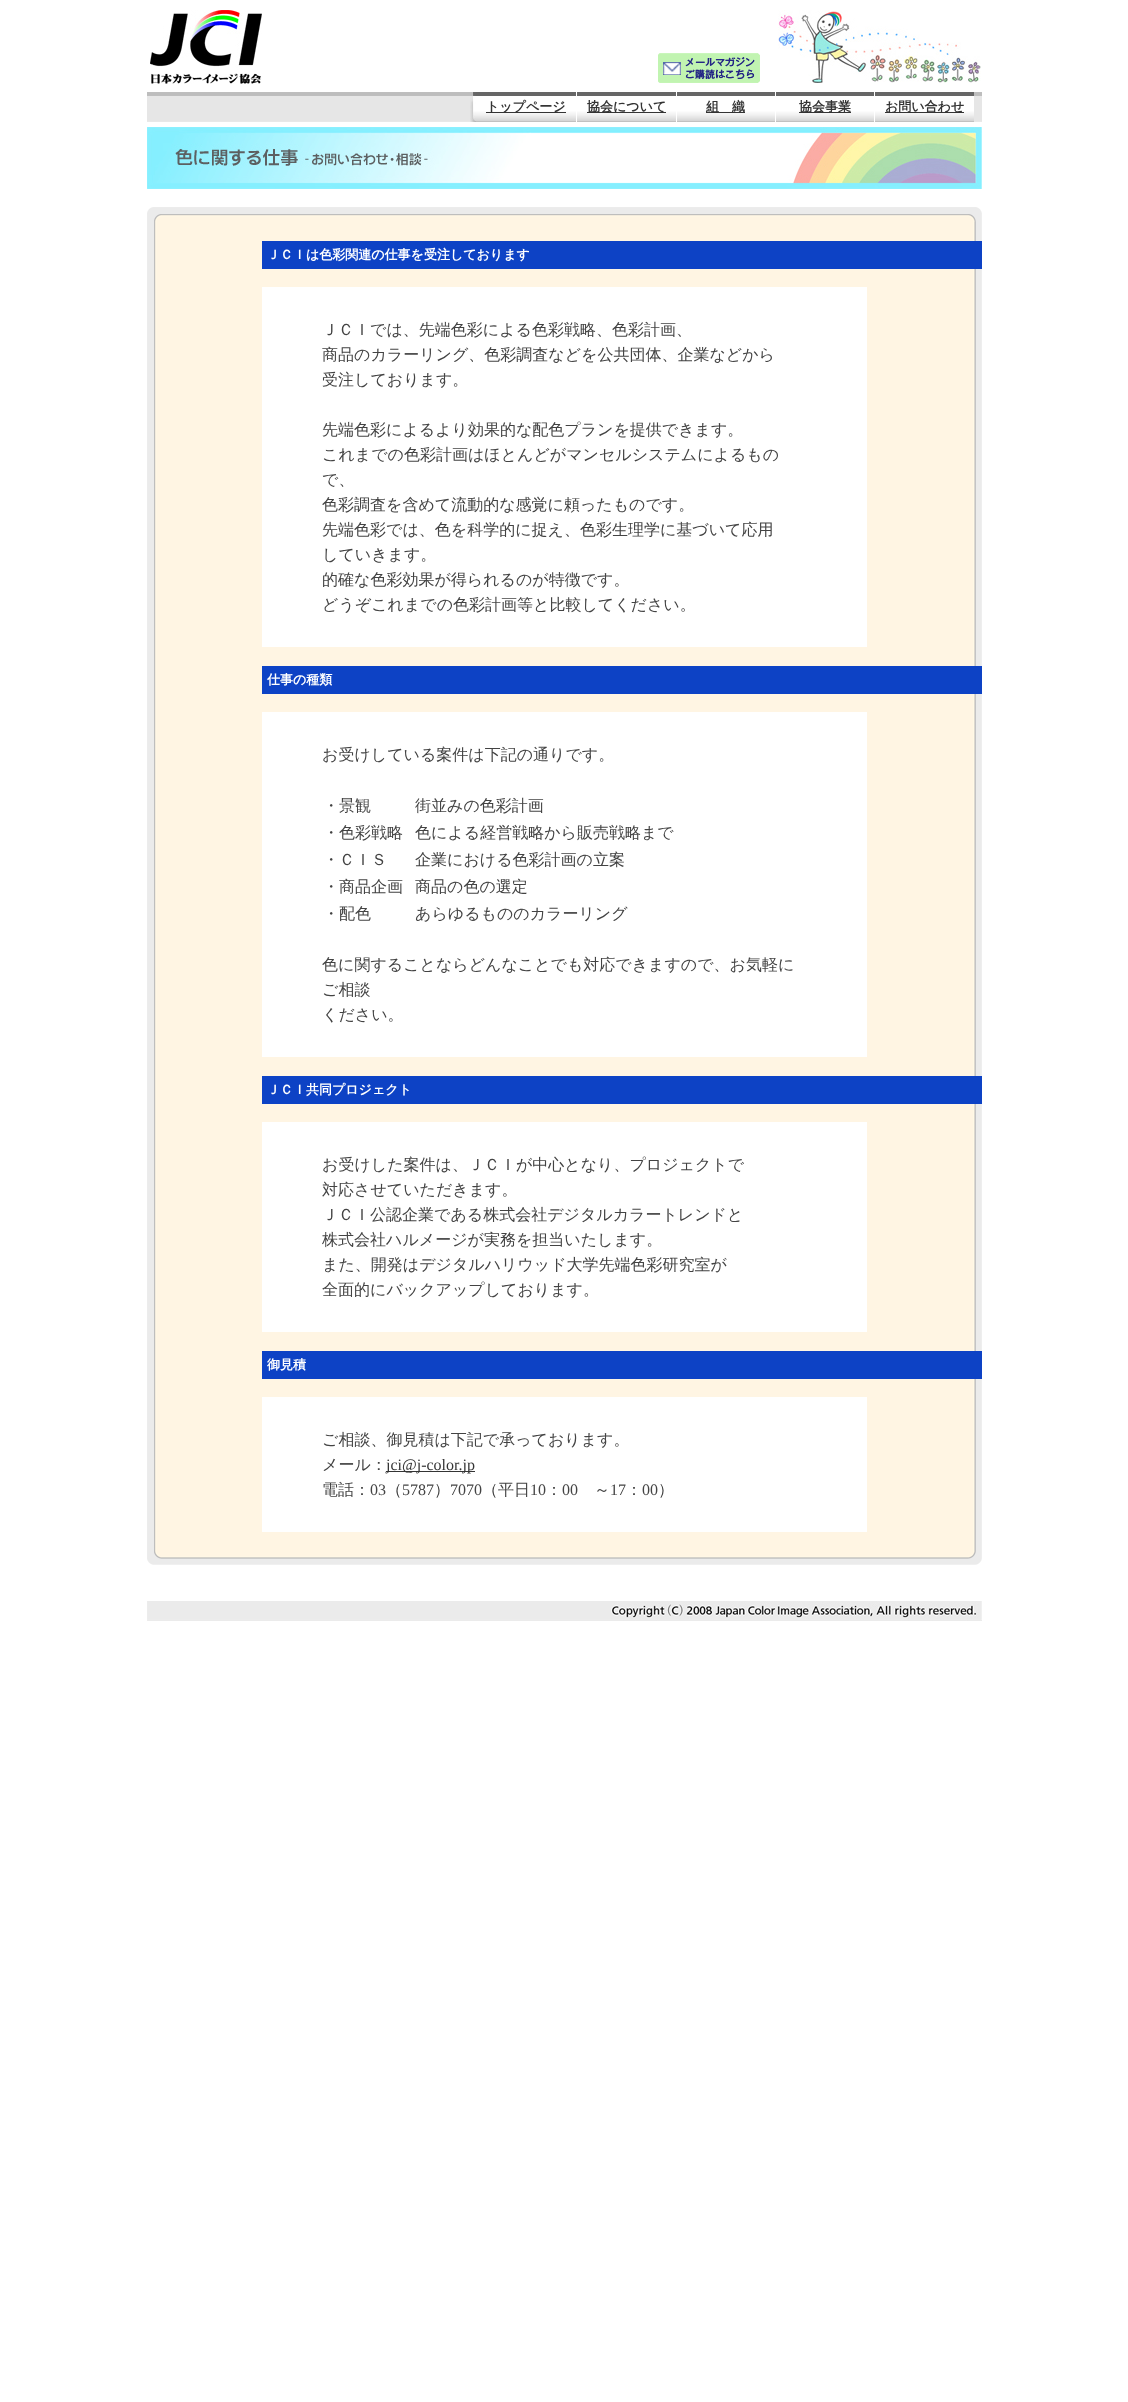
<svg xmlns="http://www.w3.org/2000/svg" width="1128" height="2402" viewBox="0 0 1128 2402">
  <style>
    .t1 { font: bold 13px WenQuanYi Zen Hei; fill: #343434; }
    .t2 { font: bold 13px WenQuanYi Zen Hei; fill: #fff; }
    .t3 { font: 500 16px WenQuanYi Zen Hei; fill: #434343; }
    .t4 { font: 16px Liberation Serif; fill: #343434; }
    .t5 { font: 16px Liberation Serif; fill: #434343; }
  </style>
  <rect width="100%" height="100%" fill="#fff"/>
  <image x="150" y="10" width="112" height="74" href="images/1.png"/>
  <image x="658" y="53" width="102" height="30" href="images/2.png"/>
  <image x="778" y="10" width="203" height="73" href="images/3.png"/>
  <image x="147" y="92" width="323" height="30" href="images/4.png"/>
  <image x="470" y="92" width="6" height="30" href="images/5.png"/>
  <image x="476" y="92" width="100" height="30" href="images/6.png"/>
  <rect x="486" y="112" width="80" height="1" fill="#343434"/>
  <text x="486" y="111" class="t1">トップページ</text>
  <image x="577" y="92" width="99" height="30" href="images/7.png"/>
  <rect x="587" y="112" width="79" height="1" fill="#343434"/>
  <text x="587" y="111" class="t1">協会について</text>
  <image x="677" y="92" width="98" height="30" href="images/8.png"/>
  <rect x="706" y="112" width="39" height="1" fill="#343434"/>
  <text x="706" y="111" class="t1">組　織</text>
  <image x="776" y="92" width="98" height="30" href="images/8.png"/>
  <rect x="799" y="112" width="52" height="1" fill="#343434"/>
  <text x="799" y="111" class="t1">協会事業</text>
  <image x="875" y="92" width="99" height="30" href="images/7.png"/>
  <rect x="885" y="112" width="79" height="1" fill="#343434"/>
  <text x="885" y="111" class="t1">お問い合わせ</text>
  <image x="974" y="92" width="8" height="30" href="images/9.png"/>
  <image x="147" y="127" width="835" height="62" href="images/10.png"/>
  <image x="147" y="207" width="15" height="15" href="images/11.png"/>
  <image x="162" y="207" width="805" height="15" href="images/12.png"/>
  <image x="967" y="207" width="15" height="15" href="images/13.png"/>
  <image x="147" y="222" width="15" height="19" href="images/14.png"/>
  <rect x="162" y="222" width="805" height="19" fill="#fff5e3"/>
  <image x="967" y="222" width="15" height="19" href="images/15.png"/>
  <image x="147" y="241" width="15" height="28" href="images/16.png"/>
  <rect x="162" y="241" width="100" height="28" fill="#fff5e3"/>
  <rect x="262" y="241" width="720" height="28" fill="#0d42c5"/>
  <text x="267" y="259" class="t2">ＪＣＩは色彩関連の仕事を受注しております</text>
  <image x="147" y="269" width="15" height="378" href="images/17.png"/>
  <rect x="162" y="269" width="805" height="397" fill="#fff5e3"/>
  <rect x="262" y="287" width="605" height="360" fill="#fff"/>
  <text x="322" y="335" class="t3">ＪＣＩでは、先端色彩による色彩戦略、色彩計画、</text>
  <text x="322" y="360" class="t3">商品のカラーリング、色彩調査などを公共団体、企業などから</text>
  <text x="322" y="385" class="t3">受注しております。</text>
  <text x="322" y="435" class="t3">先端色彩によるより効果的な配色プランを提供できます。</text>
  <text x="322" y="460" class="t3">これまでの色彩計画はほとんどがマンセルシステムによるもの</text>
  <text x="322" y="485" class="t3">で、</text>
  <text x="322" y="510" class="t3">色彩調査を含めて流動的な感覚に頼ったものです。</text>
  <text x="322" y="535" class="t3">先端色彩では、色を科学的に捉え、色彩生理学に基づいて応用</text>
  <text x="322" y="560" class="t3">していきます。</text>
  <text x="322" y="585" class="t3">的確な色彩効果が得られるのが特徴です。</text>
  <text x="322" y="610" class="t3">どうぞこれまでの色彩計画等と比較してください。</text>
  <image x="967" y="269" width="15" height="378" href="images/18.png"/>
  <image x="147" y="647" width="15" height="19" href="images/14.png"/>
  <image x="967" y="647" width="15" height="19" href="images/15.png"/>
  <image x="147" y="666" width="15" height="28" href="images/16.png"/>
  <rect x="162" y="666" width="100" height="28" fill="#fff5e3"/>
  <rect x="262" y="666" width="720" height="28" fill="#0d42c5"/>
  <text x="267" y="684" class="t2">仕事の種類</text>
  <image x="147" y="694" width="15" height="363" href="images/19.png"/>
  <rect x="162" y="694" width="805" height="382" fill="#fff5e3"/>
  <rect x="262" y="712" width="605" height="345" fill="#fff"/>
  <text x="322" y="760" class="t3">お受けしている案件は下記の通りです。</text>
  <text x="323" y="811" class="t3">・景観</text>
  <text x="415" y="811" class="t3">街並みの色彩計画</text>
  <text x="323" y="838" class="t3">・色彩戦略</text>
  <text x="415" y="838" class="t3">色による経営戦略から販売戦略まで</text>
  <text x="323" y="865" class="t3">・ＣＩＳ</text>
  <text x="415" y="865" class="t3">企業における色彩計画の立案</text>
  <text x="323" y="892" class="t3">・商品企画</text>
  <text x="415" y="892" class="t3">商品の色の選定</text>
  <text x="323" y="919" class="t3">・配色</text>
  <text x="415" y="919" class="t3">あらゆるもののカラーリング</text>
  <text x="322" y="970" class="t3">色に関することならどんなことでも対応できますので、お気軽に</text>
  <text x="322" y="995" class="t3">ご相談</text>
  <text x="322" y="1020" class="t3">ください。</text>
  <image x="967" y="694" width="15" height="363" href="images/20.png"/>
  <image x="147" y="1057" width="15" height="19" href="images/14.png"/>
  <image x="967" y="1057" width="15" height="19" href="images/15.png"/>
  <image x="147" y="1076" width="15" height="28" href="images/16.png"/>
  <rect x="162" y="1076" width="100" height="28" fill="#fff5e3"/>
  <rect x="262" y="1076" width="720" height="28" fill="#0d42c5"/>
  <text x="267" y="1094" class="t2">ＪＣＩ共同プロジェクト</text>
  <image x="147" y="1104" width="15" height="228" href="images/21.png"/>
  <rect x="162" y="1104" width="805" height="247" fill="#fff5e3"/>
  <rect x="262" y="1122" width="605" height="210" fill="#fff"/>
  <text x="322" y="1170" class="t3">お受けした案件は、ＪＣＩが中心となり、プロジェクトで</text>
  <text x="322" y="1195" class="t3">対応させていただきます。</text>
  <text x="322" y="1220" class="t3">ＪＣＩ公認企業である株式会社デジタルカラートレンドと</text>
  <text x="322" y="1245" class="t3">株式会社ハルメージが実務を担当いたします。</text>
  <text x="322" y="1270" class="t3">また、開発はデジタルハリウッド大学先端色彩研究室が</text>
  <text x="322" y="1295" class="t3">全面的にバックアップしております。</text>
  <image x="967" y="1104" width="15" height="228" href="images/22.png"/>
  <image x="147" y="1332" width="15" height="19" href="images/14.png"/>
  <image x="967" y="1332" width="15" height="19" href="images/15.png"/>
  <image x="147" y="1351" width="15" height="28" href="images/16.png"/>
  <rect x="162" y="1351" width="100" height="28" fill="#fff5e3"/>
  <rect x="262" y="1351" width="720" height="28" fill="#0d42c5"/>
  <text x="267" y="1369" class="t2">御見積</text>
  <image x="147" y="1379" width="15" height="171" href="images/23.png"/>
  <rect x="162" y="1379" width="805" height="171" fill="#fff5e3"/>
  <rect x="262" y="1397" width="605" height="135" fill="#fff"/>
  <text x="322" y="1445" class="t3">ご相談、御見積は下記で承っております。</text>
  <text x="322" y="1470" class="t3">メール：</text>
  <rect x="386" y="1471" width="89" height="1" fill="#343434"/>
  <text x="386" y="1470" class="t4">jci@j-color.jp</text>
  <text x="322" y="1495" class="t3">電話：</text>
  <text x="370" y="1495" class="t5">03</text>
  <text x="386" y="1495" class="t3">（</text>
  <text x="402" y="1495" class="t5">5787</text>
  <text x="434" y="1495" class="t3">）</text>
  <text x="450" y="1495" class="t5">7070</text>
  <text x="482" y="1495" class="t3">（平日</text>
  <text x="530" y="1495" class="t5">10</text>
  <text x="546" y="1495" class="t3">：</text>
  <text x="562" y="1495" class="t5">00</text>
  <text x="594" y="1495" class="t3">～</text>
  <text x="610" y="1495" class="t5">17</text>
  <text x="626" y="1495" class="t3">：</text>
  <text x="642" y="1495" class="t5">00</text>
  <text x="658" y="1495" class="t3">）</text>
  <image x="967" y="1379" width="15" height="171" href="images/24.png"/>
  <image x="147" y="1550" width="15" height="15" href="images/25.png"/>
  <image x="162" y="1550" width="805" height="15" href="images/26.png"/>
  <image x="967" y="1550" width="15" height="15" href="images/27.png"/>
  <image x="147" y="1601" width="835" height="20" href="images/28.png"/>
</svg>
